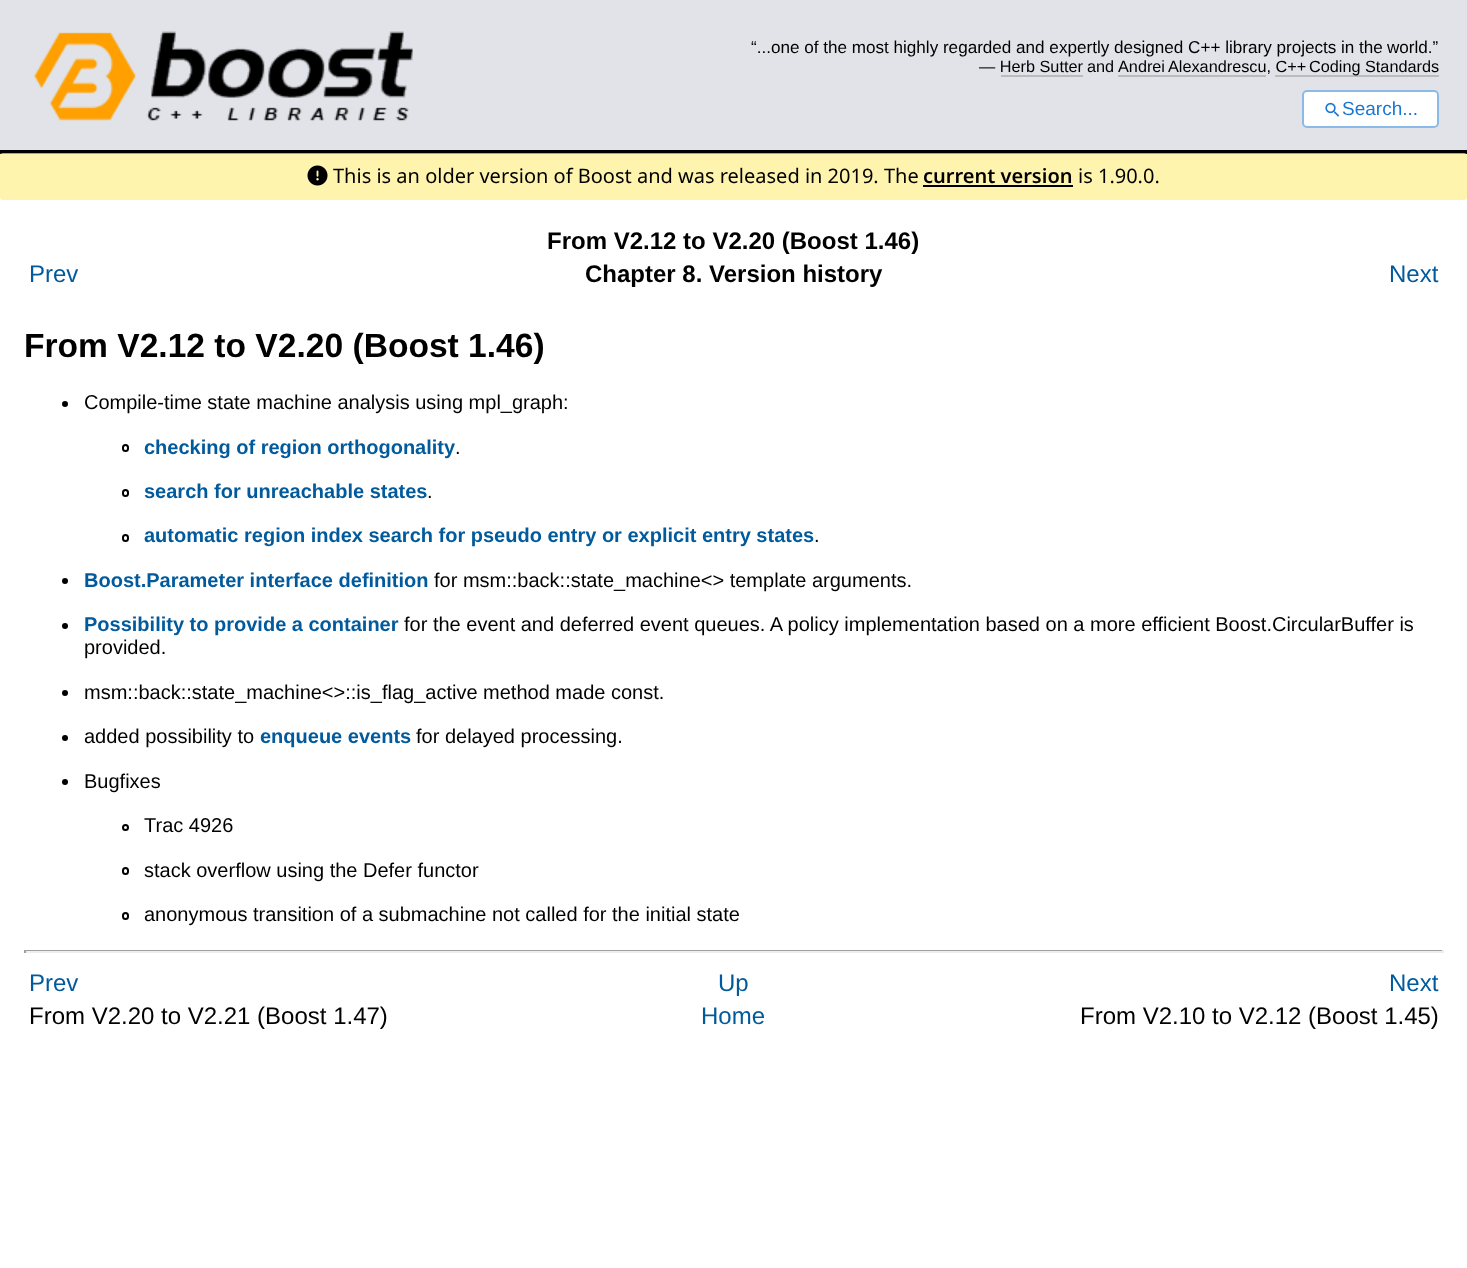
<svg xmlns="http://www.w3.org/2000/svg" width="1467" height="1268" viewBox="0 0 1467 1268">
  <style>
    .t1 { font: 17.1px Liberation Sans; fill: #000; }
    .t2 { font: 16.25px Liberation Sans; fill: #000; }
    .t3 { font: 19px Liberation Sans; fill: #1976d2; }
    .t4 { font: 20px Noto Sans; fill: #000; }
    .t5 { font: 600 20px Noto Sans; fill: #000; }
    .t6 { font: bold 24px Liberation Sans; fill: #000; }
    .t7 { font: 24px Liberation Sans; fill: #005a9c; }
    .t8 { font: bold 33.6px Liberation Sans; fill: #000; }
    .t9 { font: 20px Liberation Sans; fill: #000; }
    .t10 { font: bold 20px Liberation Sans; fill: #005a9c; }
    .t11 { font: 24px Liberation Sans; fill: #000; }
  </style>
  <rect width="100%" height="100%" fill="#fff"/>
  <rect x="0" y="0" width="1467" height="150" fill="#e1e3e8"/>
  <rect x="0" y="150" width="1467" height="4" fill="#000"/>
  <image x="34" y="31" width="379" height="90" href="images/1.png"/>
  <text x="751" y="53" class="t1">“...one of the most highly regarded and expertly designed C++ library projects in the</text>
  <text x="1387" y="53" class="t1">world.”</text>
  <text x="979" y="72" class="t2">— Herb Sutter</text>
  <text x="1087" y="72" class="t2">and</text>
  <text x="1118" y="72" class="t2">Andrei</text>
  <text x="1168" y="72" class="t2">Alexandrescu, C++</text>
  <rect x="1118" y="75" width="148" height="2" fill="#bbb"/>
  <rect x="1275" y="75" width="164" height="2" fill="#bbb"/>
  <text x="1309" y="72" class="t2">Coding Standards</text>
  <rect x="1001" y="75" width="82" height="2" fill="#bbb"/>
  <rect x="1302" y="90" width="137" height="38" rx="5" fill="#fff"/>
  <rect x="1303" y="91" width="135" height="36" rx="4" fill="none" stroke="#1976d280" stroke-width="2"/>
  <image x="1325" y="102" width="15" height="15" href="images/2.png"/>
  <text x="1342" y="115" class="t3">Search...</text>
  <rect x="0" y="153" width="1467" height="47" rx="3" fill="#fef08bb3"/>
  <image x="307" y="165" width="21" height="21" href="images/3.png"/>
  <text x="333" y="183" class="t4">This is an older version of Boost and was released in 2019. The</text>
  <text x="923" y="183" class="t5">current version</text>
  <rect x="923" y="185" width="150" height="2" fill="#000"/>
  <text x="1078" y="183" class="t4">is 1.90.0.</text>
  <text x="547" y="249" class="t6">From V2.12 to V2.20 (Boost 1.46)</text>
  <text x="29" y="282" class="t7">Prev</text>
  <text x="585" y="282" class="t6">Chapter 8. Version history</text>
  <text x="1389" y="282" class="t7">Next</text>
  <text x="24" y="357" class="t8">From V2.12 to V2.20 (Boost 1.46)</text>
  <circle cx="65" cy="404" r="3" fill="#000"/>
  <text x="84" y="409" class="t9">Compile-time state machine analysis using mpl_graph:</text>
  <rect x="123" y="445" width="5" height="6" rx="2.5" fill="none" stroke="#000" stroke-width="2"/>
  <text x="144" y="454" class="t10">checking of region orthogonality</text>
  <text x="455" y="454" class="t9">.</text>
  <rect x="123" y="490" width="5" height="6" rx="2.5" fill="none" stroke="#000" stroke-width="2"/>
  <text x="144" y="498" class="t10">search for unreachable states</text>
  <text x="427" y="498" class="t9">.</text>
  <rect x="123" y="535" width="5" height="6" rx="2.5" fill="none" stroke="#000" stroke-width="2"/>
  <text x="144" y="542" class="t10">automatic region index search for pseudo entry or explicit entry states</text>
  <text x="814" y="542" class="t9">.</text>
  <circle cx="65" cy="581" r="3" fill="#000"/>
  <text x="84" y="587" class="t10">Boost.Parameter interface definition</text>
  <text x="434" y="587" class="t9">for msm::back::state_machine&lt;&gt; template arguments.</text>
  <circle cx="65" cy="626" r="3" fill="#000"/>
  <text x="84" y="631" class="t10">Possibility to provide a container</text>
  <text x="404" y="631" class="t9">for the event and deferred event queues. A policy implementation based on a more efficient Boost.CircularBuffer is</text>
  <text x="84" y="654" class="t9">provided.</text>
  <circle cx="65" cy="693" r="3" fill="#000"/>
  <text x="84" y="699" class="t9">msm::back::state_machine&lt;&gt;::is_flag_active method made const.</text>
  <circle cx="65" cy="738" r="3" fill="#000"/>
  <text x="84" y="743" class="t9">added possibility to</text>
  <text x="260" y="743" class="t10">enqueue events</text>
  <text x="416" y="743" class="t9">for delayed processing.</text>
  <circle cx="65" cy="782" r="3" fill="#000"/>
  <text x="84" y="788" class="t9">Bugfixes</text>
  <circle cx="125.5" cy="827.5" r="2.5" fill="none" stroke="#000" stroke-width="2"/>
  <text x="144" y="832" class="t9">Trac 4926</text>
  <rect x="123" y="868" width="5" height="6" rx="2.5" fill="none" stroke="#000" stroke-width="2"/>
  <text x="144" y="877" class="t9">stack overflow using the Defer functor</text>
  <rect x="123" y="913" width="5" height="6" rx="2.5" fill="none" stroke="#000" stroke-width="2"/>
  <text x="144" y="921" class="t9">anonymous transition of a submachine not called for the initial state</text>
  <rect x="24" y="950" width="1419" height="1" fill="#9f9f9f"/>
  <rect x="1442" y="950" width="2" height="3" fill="#eee"/>
  <rect x="24" y="951" width="1419" height="2" fill="#eee"/>
  <rect x="24" y="950" width="2" height="3" fill="#9f9f9f"/>
  <text x="29" y="991" class="t7">Prev</text>
  <text x="718" y="991" class="t7">Up</text>
  <text x="1389" y="991" class="t7">Next</text>
  <text x="29" y="1024" class="t11">From V2.20 to V2.21 (Boost 1.47)</text>
  <text x="701" y="1024" class="t7">Home</text>
  <text x="1080" y="1024" class="t11">From V2.10 to V2.12 (Boost 1.45)</text>
</svg>
